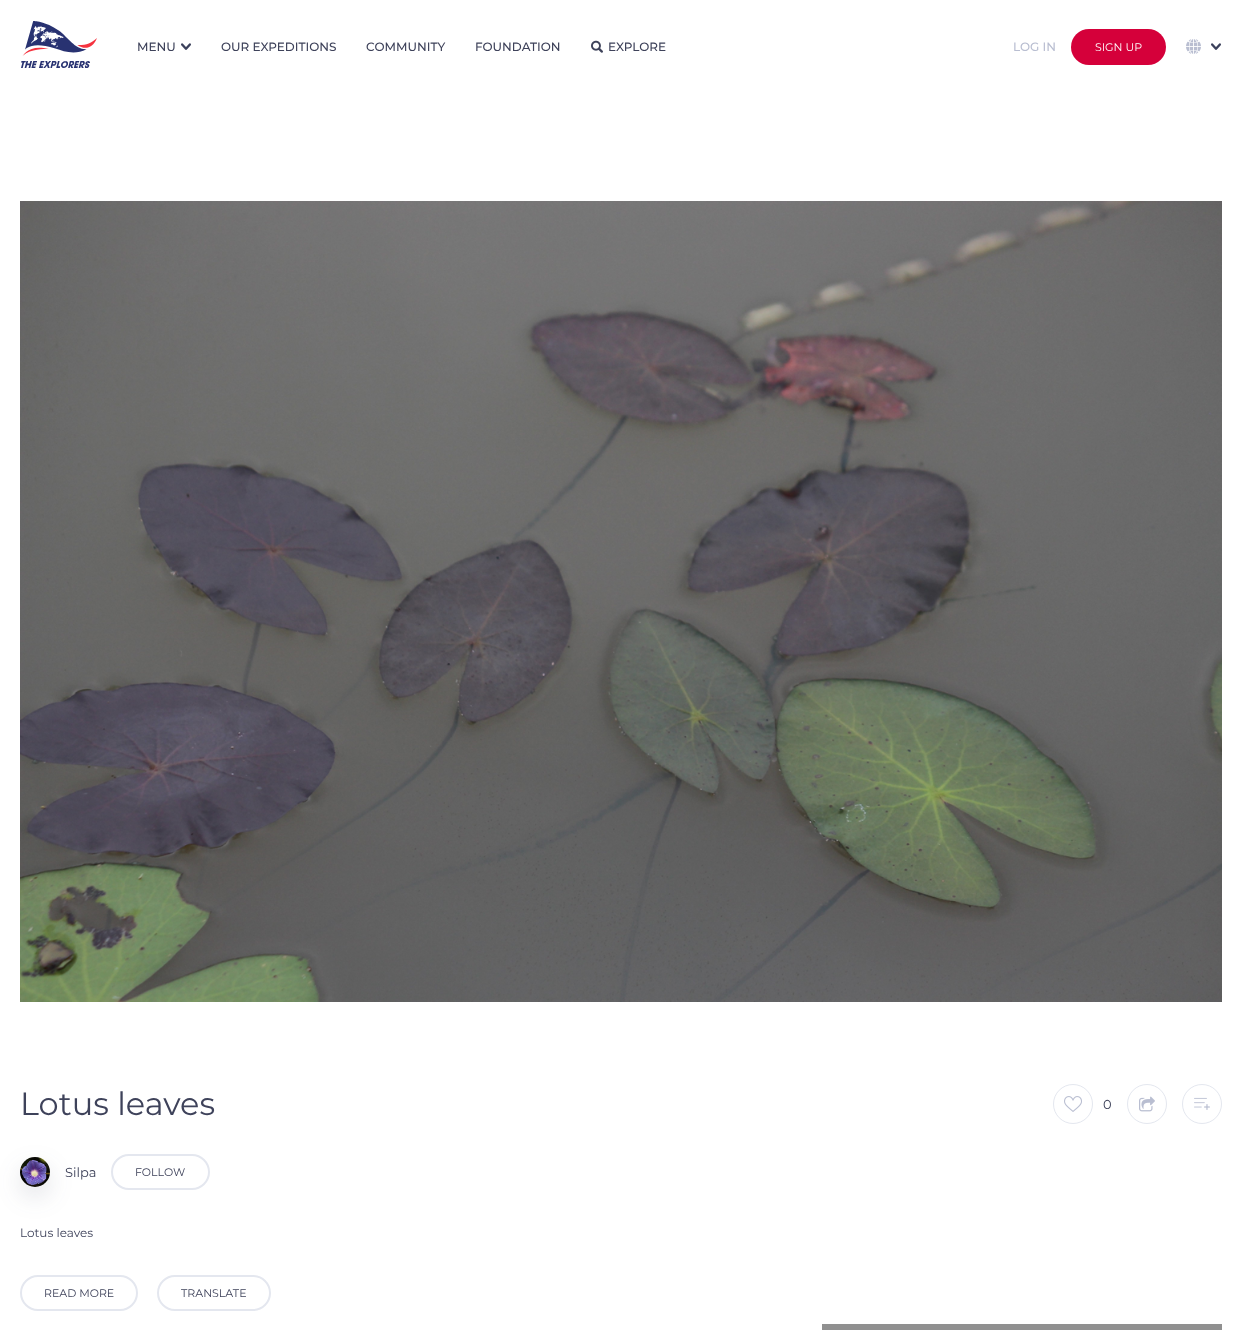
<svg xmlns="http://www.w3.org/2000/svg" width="1242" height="1330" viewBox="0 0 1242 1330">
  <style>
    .t1 { font: 500 12px Montserrat; fill: #3e425a; }
    .t2 { font: 500 12px Montserrat; fill: #b9bed1; }
    .t3 { font: 11px Montserrat; fill: #fff; }
    .t4 { font: 32px Montserrat; fill: #3e425a; }
    .t5 { font: 13px Montserrat; fill: #3e425a; }
    .t6 { font: 11px Montserrat; fill: #3e425a; }
    .t7 { font: 12px Montserrat; fill: #3e425a; }
  </style>
  <rect width="100%" height="100%" fill="#fff"/>
  <image x="21" y="21" width="76" height="47" href="images/1.png"/>
  <text x="137" y="51" class="t1">MENU</text>
  <image x="181" y="43" width="10" height="7" href="images/2.png"/>
  <text x="221" y="51" class="t1">OUR EXPEDITIONS</text>
  <text x="366" y="51" class="t1">COMMUNITY</text>
  <text x="475" y="51" class="t1">FOUNDATION</text>
  <image x="591" y="40" width="12" height="13" href="images/3.png"/>
  <text x="608" y="51" class="t1">EXPLORE</text>
  <text x="1013" y="51" class="t2">LOG IN</text>
  <rect x="1071" y="29" width="95" height="36" rx="18" fill="#d5003a"/>
  <text x="1095" y="51" class="t3">SIGN UP</text>
  <image x="1186" y="39" width="15" height="15" href="images/4.png"/>
  <image x="1211" y="43" width="10" height="7" href="images/2.png"/>
  <image x="20" y="201" width="1202" height="801" href="images/5.png"/>
  <text x="20" y="1115" class="t4">Lotus leaves</text>
  <circle cx="1073" cy="1104" r="19.5" fill="none" stroke="#e4e7ef"/>
  <image x="1064" y="1096" width="18" height="16" href="images/6.png"/>
  <text x="1103" y="1109" class="t5">0</text>
  <circle cx="1147" cy="1104" r="19.5" fill="none" stroke="#e4e7ef"/>
  <image x="1139" y="1096" width="16" height="16" href="images/7.png"/>
  <circle cx="1202" cy="1104" r="19.5" fill="none" stroke="#e4e7ef"/>
  <image x="1194" y="1097" width="16" height="13" href="images/8.png"/>
  <rect x="20" y="1167" width="30" height="30" rx="15" fill="#3a405b26" filter="blur(12.5px)"/>
  <image x="20" y="1157" width="30" height="30" href="images/9.png"/>
  <text x="65" y="1177" class="t5">Silpa</text>
  <rect x="112" y="1155" width="97" height="34" rx="17" fill="none" stroke="#e4e7ef" stroke-width="2"/>
  <text x="135" y="1176" class="t6">FOLLOW</text>
  <text x="20" y="1237" class="t7">Lotus leaves</text>
  <rect x="21" y="1276" width="116" height="34" rx="17" fill="none" stroke="#e4e7ef" stroke-width="2"/>
  <text x="44" y="1297" class="t6">READ MORE</text>
  <rect x="158" y="1276" width="112" height="34" rx="17" fill="none" stroke="#e4e7ef" stroke-width="2"/>
  <text x="181" y="1297" class="t6">TRANSLATE</text>
  <rect x="822" y="1324" width="400" height="6" fill="#909090"/>
</svg>
